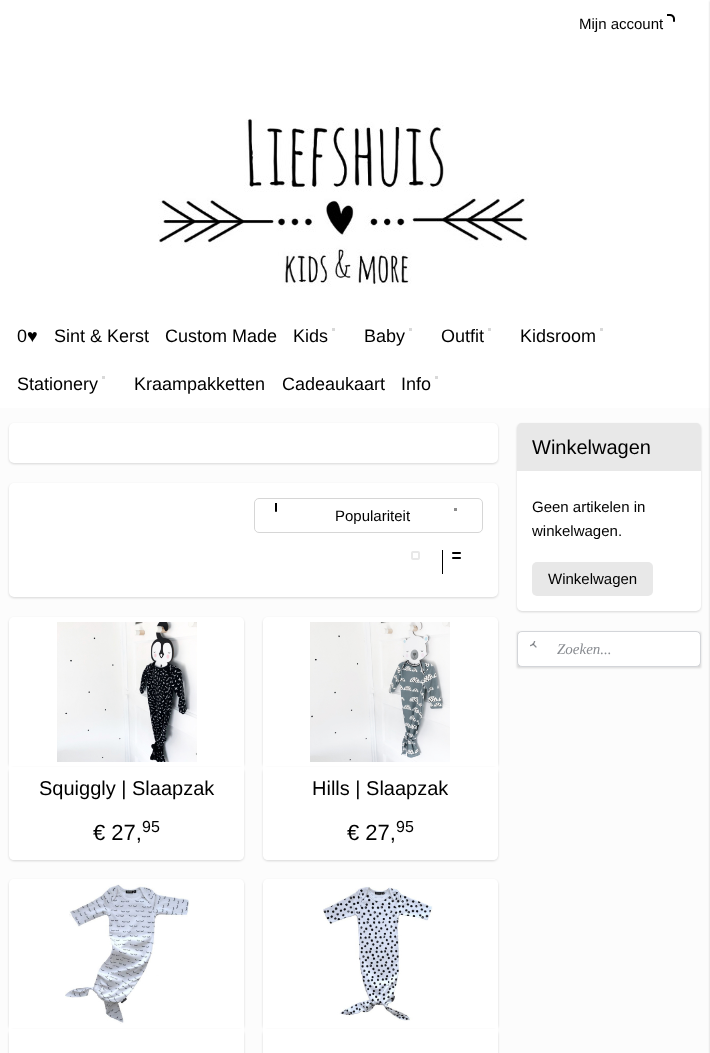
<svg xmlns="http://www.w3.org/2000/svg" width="710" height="1053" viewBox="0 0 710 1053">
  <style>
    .t1 { font: 15px Liberation Sans; fill: #000; }
    .t2 { font: 18px Liberation Sans; fill: #000; }
    .t3 { font: 20px Liberation Sans; fill: #000; }
    .t4 { font: 22px Liberation Sans; fill: #000; }
    .t5 { font: 16px Liberation Sans; fill: #000; }
    .t6 { font: italic 15px Liberation Serif; fill: #898c91; }
  </style>
  <rect width="100%" height="100%" fill="#fcfcfc"/>
  <rect x="0" y="0" width="710" height="408" fill="#fff"/>
  <text x="579" y="29" class="t1">Mijn account</text>
  <image x="667" y="14" width="8" height="8" href="images/1.png"/>
  <rect x="710" y="1" width="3" height="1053" fill="#00000033" filter="blur(1px)"/>
  <image x="158" y="118" width="371" height="169" href="images/2.png"/>
  <text x="17" y="342" class="t2">0♥</text>
  <text x="54" y="342" class="t2">Sint &amp; Kerst</text>
  <text x="165" y="342" class="t2">Custom Made</text>
  <text x="293" y="342" class="t2">Kids</text>
  <rect x="332" y="328" width="3" height="3" fill="#d9d9d9"/>
  <text x="364" y="342" class="t2">Baby</text>
  <rect x="409" y="328" width="3" height="3" fill="#d9d9d9"/>
  <text x="441" y="342" class="t2">Outfit</text>
  <rect x="488" y="328" width="3" height="3" fill="#d9d9d9"/>
  <text x="520" y="342" class="t2">Kidsroom</text>
  <rect x="600" y="328" width="3" height="3" fill="#d9d9d9"/>
  <text x="17" y="390" class="t2">Stationery</text>
  <rect x="102" y="376" width="3" height="3" fill="#d9d9d9"/>
  <text x="134" y="390" class="t2">Kraampakketten</text>
  <text x="282" y="390" class="t2">Cadeaukaart</text>
  <text x="401" y="390" class="t2">Info</text>
  <rect x="435" y="376" width="3" height="3" fill="#d9d9d9"/>
  <rect x="9" y="424" width="489" height="40" rx="5" fill="#00000026" filter="blur(1px)"/>
  <rect x="9" y="423" width="489" height="40" rx="5" fill="#fff"/>
  <rect x="9" y="484" width="489" height="114" rx="5" fill="#00000026" filter="blur(1px)"/>
  <rect x="9" y="483" width="489" height="114" rx="5" fill="#fff"/>
  <rect x="254.5" y="498.5" width="228" height="34" rx="4.5" fill="none" stroke="#d6d6d6"/>
  <image x="275" y="503" width="2" height="9" href="images/3.png"/>
  <rect x="454" y="508" width="3" height="3" fill="#8c8c8c"/>
  <text x="335" y="521" class="t1">Populariteit</text>
  <image x="411" y="551" width="9" height="9" href="images/4.png"/>
  <rect x="442" y="550" width="1" height="24" fill="#000"/>
  <image x="452" y="552" width="9" height="7" href="images/5.png"/>
  <rect x="9" y="618" width="235" height="150" rx="5" fill="#00000026" filter="blur(1px)"/>
  <path d="M14 617H239C242 617 244 619 244 622V767H9V622C9 619 11 617 14 617Z" fill="#fff"/>
  <image x="57" y="622" width="140" height="140" href="images/6.png"/>
  <rect x="9" y="768" width="235" height="93" rx="5" fill="#00000026" filter="blur(1px)"/>
  <path d="M9 767H244V855C244 858 242 860 239 860H14C11 860 9 858 9 855Z" fill="#fff"/>
  <text x="39" y="795" class="t3">Squiggly | Slaapzak</text>
  <text x="93" y="840" class="t4">€ 27,</text>
  <text x="142" y="832" class="t5">95</text>
  <rect x="263" y="618" width="235" height="150" rx="5" fill="#00000026" filter="blur(1px)"/>
  <path d="M268 617H493C496 617 498 619 498 622V767H263V622C263 619 265 617 268 617Z" fill="#fff"/>
  <image x="310" y="622" width="140" height="140" href="images/7.png"/>
  <rect x="263" y="768" width="235" height="93" rx="5" fill="#00000026" filter="blur(1px)"/>
  <path d="M263 767H498V855C498 858 496 860 493 860H268C265 860 263 858 263 855Z" fill="#fff"/>
  <text x="312" y="795" class="t3">Hills | Slaapzak</text>
  <text x="347" y="840" class="t4">€ 27,</text>
  <text x="396" y="832" class="t5">95</text>
  <rect x="9" y="880" width="235" height="150" rx="5" fill="#00000026" filter="blur(1px)"/>
  <path d="M14 879H239C242 879 244 881 244 884V1029H9V884C9 881 11 879 14 879Z" fill="#fff"/>
  <image x="65" y="884" width="125" height="140" href="images/8.png"/>
  <rect x="9" y="1030" width="235" height="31" rx="5" fill="#00000026" filter="blur(1px)"/>
  <rect x="9" y="1029" width="235" height="24" fill="#fff"/>
  <rect x="263" y="880" width="235" height="150" rx="5" fill="#00000026" filter="blur(1px)"/>
  <path d="M268 879H493C496 879 498 881 498 884V1029H263V884C263 881 265 879 268 879Z" fill="#fff"/>
  <image x="323" y="886" width="110" height="135" href="images/9.png"/>
  <rect x="263" y="1030" width="235" height="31" rx="5" fill="#00000026" filter="blur(1px)"/>
  <rect x="263" y="1029" width="235" height="24" fill="#fff"/>
  <rect x="517" y="424" width="184" height="188" rx="5" fill="#00000026" filter="blur(1px)"/>
  <rect x="517" y="423" width="184" height="188" rx="5" fill="#fff"/>
  <path d="M522 423H696C699 423 701 425 701 428V471H517V428C517 425 519 423 522 423Z" fill="#e8e8e8"/>
  <text x="532" y="454" class="t3">Winkelwagen</text>
  <text x="532" y="512" class="t1">Geen artikelen in</text>
  <text x="532" y="536" class="t1">winkelwagen.</text>
  <rect x="532" y="562" width="121" height="34" rx="5" fill="#e8e8e8"/>
  <text x="548" y="584" class="t1">Winkelwagen</text>
  <rect x="517" y="632" width="184" height="36" fill="#00000026" filter="blur(1px)"/>
  <rect x="517.5" y="631.5" width="183" height="35" rx="4.5" fill="#fff" stroke="#d3d5d9"/>
  <image x="530" y="641" width="7" height="7" href="images/10.png"/>
  <text x="557" y="654" class="t6">Zoeken...</text>
</svg>
